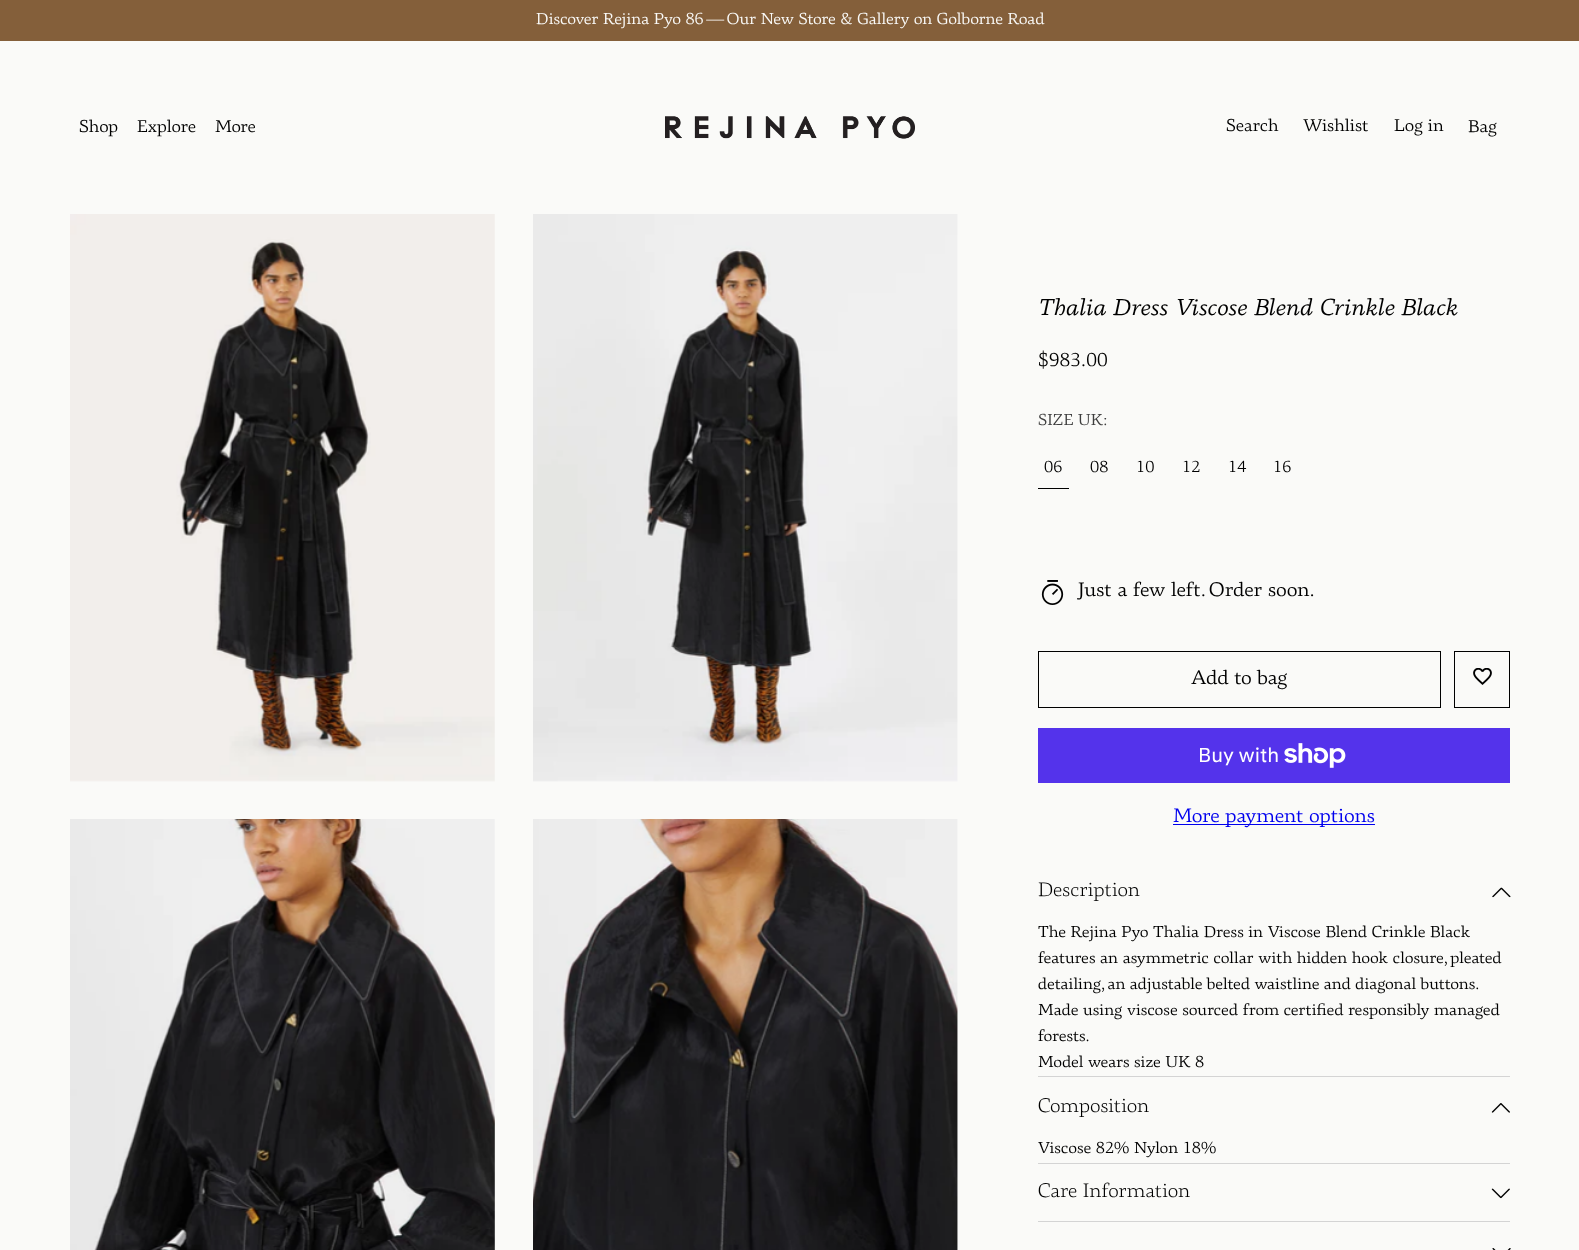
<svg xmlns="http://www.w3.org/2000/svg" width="1579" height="1250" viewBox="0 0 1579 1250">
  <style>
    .t1 { font: 16.25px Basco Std; fill: #fafaf8; }
    .t2 { font: 17.5px Basco Std; fill: #000; }
    .t3 { font: italic 23.75px Basco Std; fill: #000; }
    .t4 { font: 19px Basco Std; fill: #000; }
    .t5 { font: 16.25px Basco Std; fill: #3e3e3e; }
    .t6 { font: 16.25px Basco Std; fill: #000; }
    .t7 { font: 20px Basco Std; fill: #000; }
    .t8 { font: 20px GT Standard; fill: #fff; }
    .t9 { font: 20px Basco Std; fill: #00e; }
    .t10 { font: 300 20px Basco Std; fill: #000; }
  </style>
  <rect width="100%" height="100%" fill="#fafaf8"/>
  <rect x="0" y="0" width="1579" height="41" fill="#845f3a"/>
  <text x="536" y="24" class="t1">Discover Rejina Pyo 86 — Our New Store &amp; Gallery on Golborne Road</text>
  <text x="79" y="132" class="t2">Shop</text>
  <text x="137" y="132" class="t2">Explore</text>
  <text x="215" y="132" class="t2">More</text>
  <image x="665" y="116" width="250" height="23" href="images/1.png"/>
  <text x="1226" y="131" class="t2">Search</text>
  <text x="1303" y="131" class="t2">Wishlist</text>
  <text x="1394" y="131" class="t2">Log in</text>
  <text x="1468" y="132" class="t2">Bag</text>
  <image x="70" y="214" width="425" height="568" href="images/2.png"/>
  <image x="533" y="214" width="425" height="568" href="images/3.png"/>
  <image x="70" y="819" width="425" height="431" href="images/4.png"/>
  <image x="533" y="819" width="425" height="431" href="images/5.png"/>
  <text x="1038" y="315" class="t3">Thalia Dress Viscose Blend Crinkle Black</text>
  <text x="1038" y="366" class="t4">$983.00</text>
  <text x="1038" y="425" class="t5">SIZE UK:</text>
  <rect x="1038" y="488" width="31" height="1" fill="#000"/>
  <text x="1044" y="472" class="t6">06</text>
  <text x="1090" y="472" class="t6">08</text>
  <text x="1136" y="472" class="t6">10</text>
  <text x="1182" y="472" class="t6">12</text>
  <text x="1228" y="472" class="t6">14</text>
  <text x="1273" y="472" class="t6">16</text>
  <image x="1041" y="580" width="23" height="25" href="images/6.png"/>
  <text x="1078" y="596" class="t7">Just a few left. Order soon.</text>
  <rect x="1038.5" y="651.5" width="402" height="56" fill="none" stroke="#000"/>
  <text x="1191" y="684" class="t7">Add to bag</text>
  <rect x="1454.5" y="651.5" width="55" height="56" fill="none" stroke="#000"/>
  <image x="1473" y="668" width="19" height="17" href="images/7.png"/>
  <rect x="1038" y="728" width="472" height="55" fill="#5433eb"/>
  <text x="1198" y="762" class="t8">Buy with</text>
  <image x="1284" y="743" width="62" height="25" href="images/8.png"/>
  <rect x="1173" y="824" width="202" height="1" fill="#00e"/>
  <text x="1173" y="822" class="t9">More payment options</text>
  <rect x="1038" y="1076" width="472" height="1" fill="#d4d4d4"/>
  <text x="1038" y="896" class="t10">Description</text>
  <image x="1492" y="887" width="19" height="11" href="images/9.png"/>
  <text x="1038" y="937" class="t6">The Rejina Pyo Thalia Dress in Viscose Blend Crinkle Black</text>
  <text x="1038" y="963" class="t6">features an asymmetric collar with hidden hook closure, pleated</text>
  <text x="1038" y="989" word-spacing="-0.25" class="t6">detailing, an adjustable belted waistline and diagonal buttons.</text>
  <text x="1038" y="1015" class="t6">Made using viscose sourced from certified responsibly managed</text>
  <text x="1038" y="1041" class="t6">forests.</text>
  <text x="1038" y="1067" class="t6">Model wears size UK 8</text>
  <rect x="1038" y="1163" width="472" height="1" fill="#d4d4d4"/>
  <text x="1038" y="1112" class="t10">Composition</text>
  <image x="1491" y="1103" width="19" height="10" href="images/10.png"/>
  <text x="1038" y="1153" class="t6">Viscose 82% Nylon 18%</text>
  <rect x="1038" y="1221" width="472" height="1" fill="#d4d4d4"/>
  <text x="1038" y="1197" class="t10">Care Information</text>
  <image x="1491" y="1188" width="19" height="11" href="images/11.png"/>
  <image x="1492" y="1248" width="19" height="2" href="images/12.png"/>
</svg>
